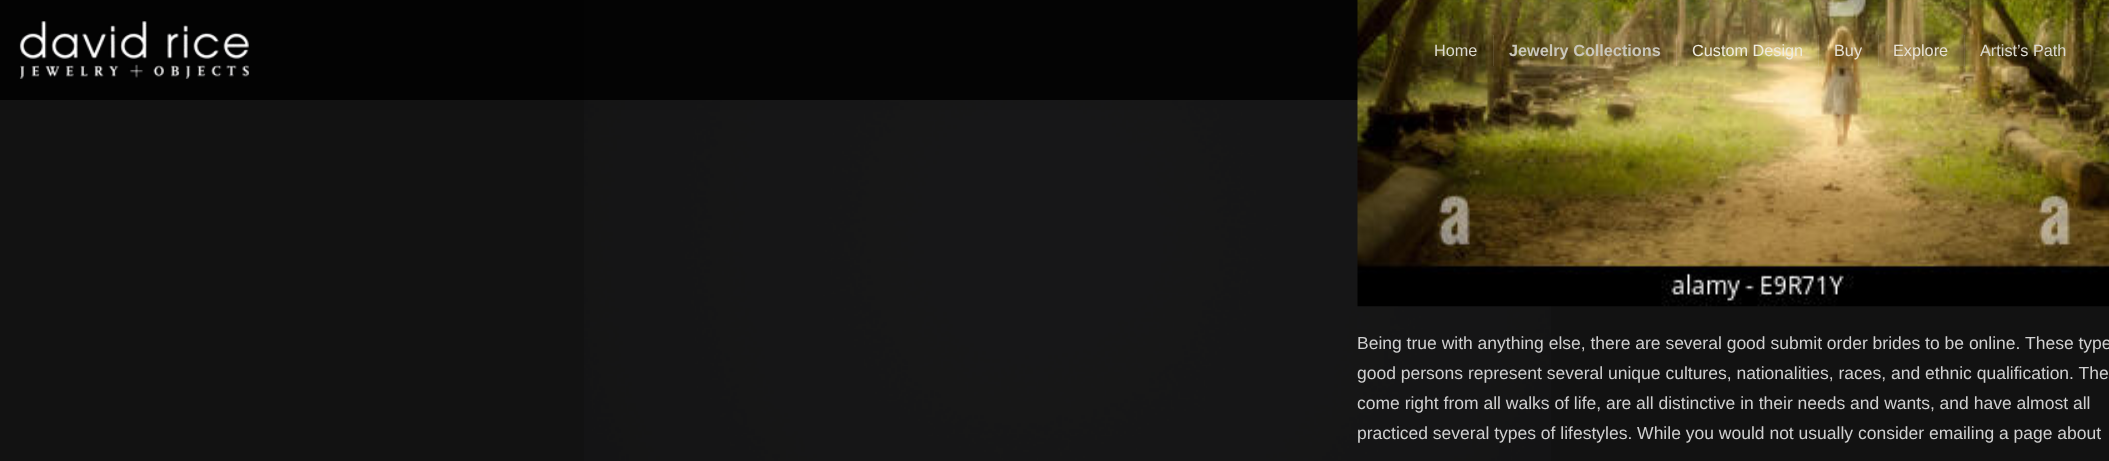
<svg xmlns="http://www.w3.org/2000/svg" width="2109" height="461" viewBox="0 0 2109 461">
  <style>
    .t1 { font: 16.25px Liberation Sans; fill: #dbd9d0; }
    .t2 { font: bold 16.25px Liberation Sans; fill: #c9c6bb; }
    .t3 { font: 16.25px Liberation Sans; fill: #eeebde; }
    .t4 { font: 16.25px Liberation Sans; fill: #e7e1d5; }
    .t5 { font: 17.5px Liberation Sans; fill: #d0d0d0; }
  </style>
  <rect width="100%" height="100%" fill="#121212"/>
  <image x="584" y="0" width="967" height="461" href="images/2.png"/>
  <rect x="0" y="0" width="1358" height="100" fill="#000000cc"/>
  <image x="19" y="21" width="231" height="58" href="images/1.png"/>
  <image x="1357" y="0" width="752" height="307" href="images/3.png"/>
  <text x="1434" y="56" class="t1">Home</text>
  <rect x="1493" y="35" width="1" height="31" fill="#ffffff1a"/>
  <text x="1509" y="56" class="t2">Jewelry Collections</text>
  <rect x="1676" y="35" width="1" height="31" fill="#ffffff1a"/>
  <text x="1692" y="56" class="t3">Custom Design</text>
  <rect x="1818" y="35" width="1" height="31" fill="#ffffff1a"/>
  <text x="1834" y="56" class="t4">Buy</text>
  <rect x="1878" y="35" width="1" height="31" fill="#ffffff1a"/>
  <text x="1893" y="56" class="t4">Explore</text>
  <rect x="1964" y="35" width="1" height="31" fill="#ffffff1a"/>
  <text x="1980" y="56" class="t1">Artist’s Path</text>
  <text x="1357" y="349" class="t5">Being true with anything else, there are several good submit order brides to be online. These type</text>
  <text x="1357" y="379" class="t5">good persons represent several unique cultures, nationalities, races, and ethnic qualification. The</text>
  <text x="1357" y="409" class="t5">come right from all walks of life, are all distinctive in their needs and wants, and have almost all</text>
  <text x="1357" y="439" class="t5">practiced several types of lifestyles. While you would not usually consider emailing a page about</text>
</svg>
